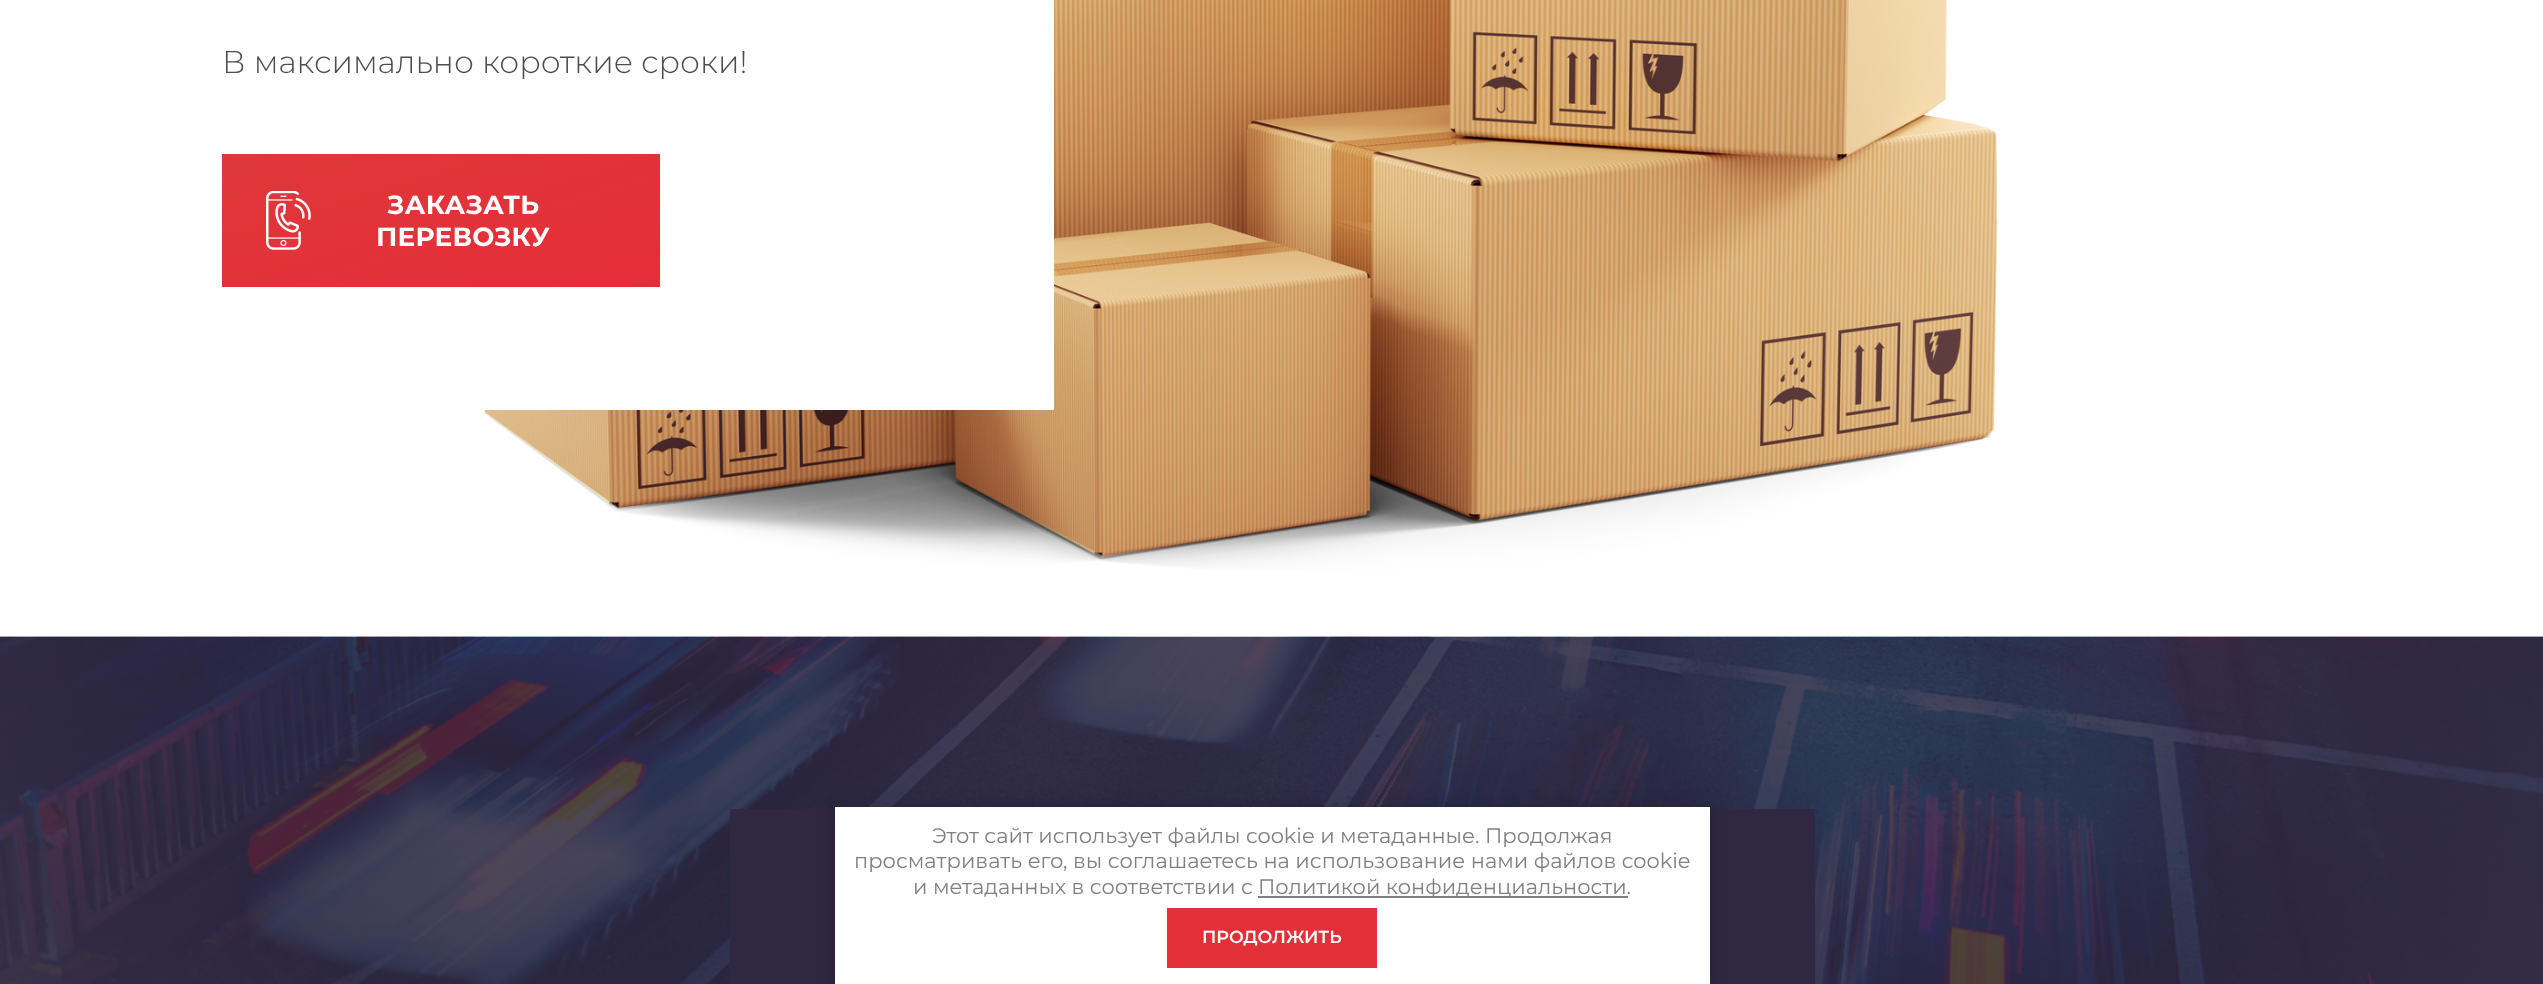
<svg xmlns="http://www.w3.org/2000/svg" width="2543" height="984" viewBox="0 0 2543 984">
  <style>
    .t1 { font: 300 31.5px Montserrat; fill: #4d4d4d; }
    .t2 { font: bold 26.25px Montserrat; letter-spacing: 0.25px; fill: #fff; }
    .t3 { font: 21px Montserrat; fill: #808080; }
    .t4 { font: 600 17.5px Montserrat; fill: #fff; }
  </style>
  <defs>
    <linearGradient id="g1" gradientUnits="userSpaceOnUse" x1="404" y1="99" x2="478" y2="342"><stop offset="0" stop-color="#de383b"/><stop offset="1" stop-color="#e62d37"/></linearGradient>
  </defs>
  <rect width="100%" height="100%" fill="#fff"/>
  <image x="478" y="0" width="1521" height="571" href="images/1.png"/>
  <rect x="478" y="0" width="576" height="410" fill="#fff"/>
  <text x="222" y="73" class="t1">В максимально короткие сроки!</text>
  <rect x="222" y="154" width="438" height="133" fill="url(#g1)"/>
  <image x="266" y="191" width="45" height="59" href="images/2.png"/>
  <text x="387" y="214" class="t2">ЗАКАЗАТЬ</text>
  <text x="376" y="246" class="t2">ПЕРЕВОЗКУ</text>
  <image x="0" y="636" width="2543" height="348" href="images/3.png"/>
  <rect x="730" y="809" width="1085" height="175" fill="#302842"/>
  <rect x="835" y="809" width="875" height="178" fill="#0000003b" filter="blur(9px)"/>
  <rect x="835" y="807" width="875" height="177" fill="#fff"/>
  <text x="932" y="843" class="t3">Этот сайт использует файлы cookie и метаданные. Продолжая</text>
  <text x="854" y="868" class="t3">просматривать его, вы соглашаетесь на использование нами файлов cookie</text>
  <text x="913" y="894" class="t3">и метаданных в соответствии с</text>
  <rect x="1258" y="896" width="370" height="2" fill="#808080"/>
  <text x="1258" y="894" class="t3">Политикой конфиденциальности.</text>
  <rect x="1167" y="908" width="210" height="60" fill="#e33038"/>
  <text x="1202" y="943" class="t4">ПРОДОЛЖИТЬ</text>
</svg>
